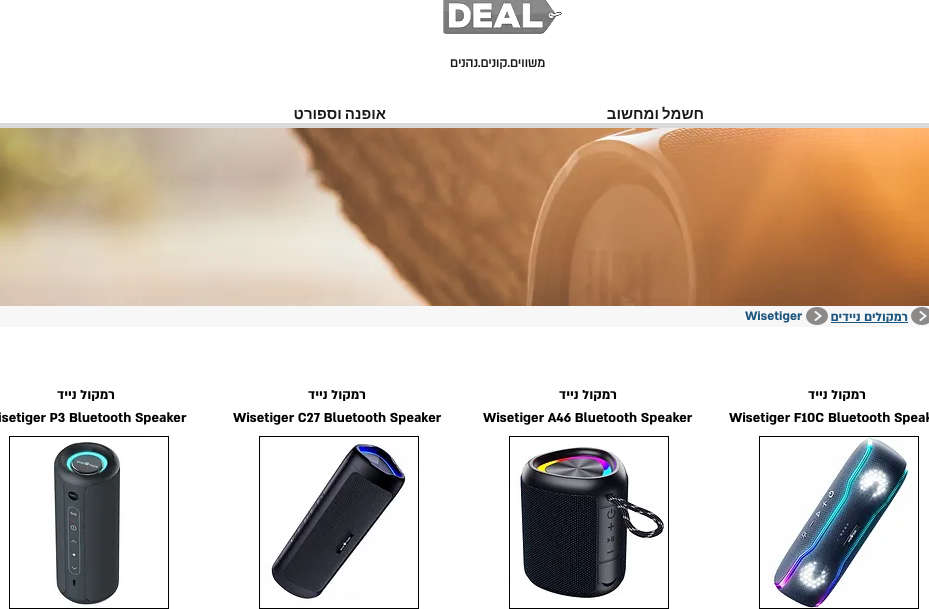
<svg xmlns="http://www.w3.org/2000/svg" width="929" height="609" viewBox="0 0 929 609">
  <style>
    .t1 { font: bold 14px 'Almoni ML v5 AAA'; direction: rtl; fill: #191919; }
    .t2 { font: bold 15px Liberation Sans; direction: rtl; fill: #191919; }
    .t3 { font: bold 14px 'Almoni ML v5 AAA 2'; fill: #1f5680; }
    .t4 { font: bold 14px 'Almoni ML v5 AAA 2'; direction: rtl; fill: #1f5680; }
    .t5 { font: bold 15px 'Almoni ML v5 AAA 2'; direction: rtl; fill: #000; }
    .t6 { font: bold 15px 'Almoni ML v5 AAA 2'; fill: #000; }
  </style>
  <rect width="100%" height="100%" fill="#fff"/>
  <image x="443" y="0" width="119" height="34" href="images/1.png"/>
  <text x="545" y="67" class="t1">משווים.קונים.נהנים</text>
  <text x="386" y="119" word-spacing="-1" class="t2">אופנה וספורט</text>
  <text x="704" y="119" word-spacing="-1" class="t2">חשמל ומחשוב</text>
  <rect x="0" y="123" width="929" height="5" fill="#dbdbdb"/>
  <image x="0" y="128" width="929" height="178" href="images/2.png"/>
  <rect x="0" y="306" width="929" height="21" fill="#f7f7f7"/>
  <text x="745" y="320" class="t3">Wisetiger</text>
  <image x="806" y="307" width="22" height="18" href="images/3.png"/>
  <rect x="831" y="322" width="77" height="1" fill="#1f5680"/>
  <text x="908" y="321" class="t4">רמקולים ניידים</text>
  <image x="911" y="307" width="18" height="18" href="images/4.png"/>
  <text x="115" y="399" class="t5">רמקול נייד</text>
  <text x="-2" y="422" class="t6">isetiger P3 Bluetooth Speaker</text>
  <text x="366" y="399" class="t5">רמקול נייד</text>
  <text x="233" y="422" class="t6">Wisetiger C27 Bluetooth Speaker</text>
  <text x="617" y="399" class="t5">רמקול נייד</text>
  <text x="483" y="422" class="t6">Wisetiger A46 Bluetooth Speaker</text>
  <text x="866" y="399" class="t5">רמקול נייד</text>
  <text x="729" y="422" class="t6">Wisetiger F10C Bluetooth Speak</text>
  <rect x="9" y="436" width="160" height="173" fill="#000"/>
  <image x="10" y="437" width="158" height="171" href="images/5.png"/>
  <rect x="259" y="436" width="160" height="173" fill="#000"/>
  <image x="260" y="437" width="158" height="171" href="images/6.png"/>
  <rect x="509" y="436" width="160" height="173" fill="#000"/>
  <image x="510" y="437" width="158" height="171" href="images/7.png"/>
  <rect x="759" y="436" width="160" height="173" fill="#000"/>
  <image x="760" y="437" width="158" height="171" href="images/8.png"/>
</svg>
